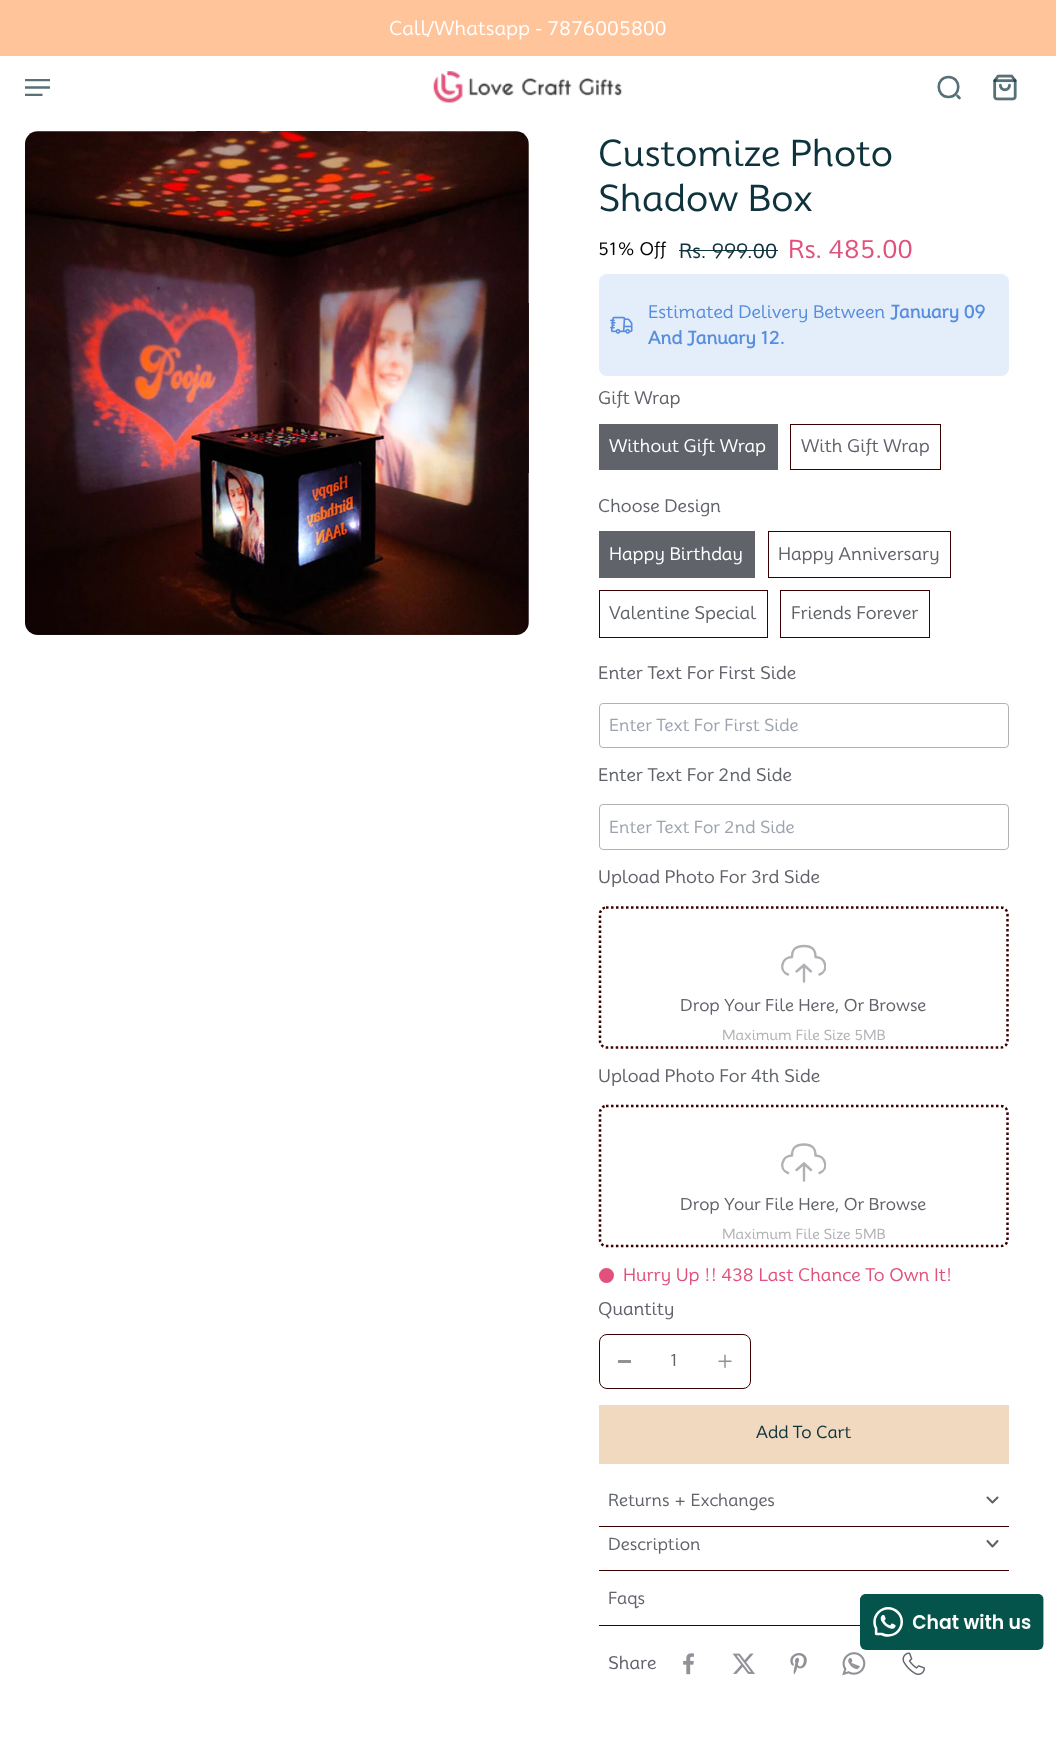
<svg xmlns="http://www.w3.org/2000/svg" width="1056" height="1737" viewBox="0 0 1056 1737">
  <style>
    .t1 { font: 19.25px Mooli; fill: #fff; }
    .t2 { font: 36px Mooli; fill: #0e333c; }
    .t3 { font: 17.5px Mooli; fill: #000; }
    .t4 { font: 20px Mooli; fill: #0e333c; }
    .t5 { font: 25px Mooli; fill: #e1517b; }
    .t6 { font: 17.5px Mooli; fill: #568ddd; }
    .t7 { font: bold 17.5px Mooli; fill: #568ddd; }
    .t8 { font: 17.5px Mooli; fill: #61636b; }
    .t9 { font: 17.5px Mooli; fill: #fff; }
    .t10 { font: 16.75px Mooli; fill: #9ca3af; }
    .t11 { font: 16.6px Mooli; fill: #61636b; }
    .t12 { font: 14px Mooli; fill: #b0b1b5; }
    .t13 { font: 17.5px Mooli; fill: #e1517b; }
    .t14 { font: 16.75px Mooli; fill: #61636b; }
    .t15 { font: 16.75px Mooli; fill: #0e333c; }
  </style>
  <defs>
    <clipPath id="clip1"><rect x="781" y="944" width="45" height="40"/></clipPath>
    <clipPath id="clip2"><rect x="781" y="1143" width="45" height="40"/></clipPath>
  </defs>
  <rect width="100%" height="100%" fill="#fff"/>
  <rect x="0" y="0" width="1056" height="56" fill="#ffc49a"/>
  <text x="389" y="35" class="t1">Call/Whatsapp - 7876005800</text>
  <image x="25" y="79" width="25" height="17" href="images/1.png"/>
  <image x="433" y="71" width="189" height="32" href="images/2.png"/>
  <path d="M948.5 97C961.5 97 961.5 77 948.5 77C935.5 77 935.5 97 948.5 97ZM959.5 98L957.5 96" fill="none" stroke="#567077" stroke-width="2.6" stroke-linecap="round" stroke-linejoin="round"/>
  <image x="993" y="74" width="24" height="27" href="images/3.png"/>
  <image x="25" y="131" width="504" height="504" href="images/4.png"/>
  <text x="598" y="166" class="t2">Customize Photo</text>
  <text x="598" y="211" class="t2">Shadow Box</text>
  <text x="598" y="255" class="t3">51% Off</text>
  <text x="679" y="258" class="t4">Rs. 999.00</text>
  <rect x="679" y="250" width="99" height="1" fill="#0e333c"/>
  <text x="788" y="258" class="t5">Rs. 485.00</text>
  <rect x="599" y="274" width="410" height="102" rx="8" fill="#e4edfa"/>
  <image x="610" y="316" width="23" height="18" href="images/5.png"/>
  <text x="648" y="318" class="t6">Estimated Delivery Between</text>
  <text x="890" y="318" class="t7">January 09</text>
  <text x="648" y="344" class="t7">And January 12.</text>
  <text x="598" y="404" class="t8">Gift Wrap</text>
  <rect x="599" y="424" width="179" height="46" fill="#61636b"/>
  <text x="609" y="452" class="t9">Without Gift Wrap</text>
  <rect x="790.5" y="424.5" width="150" height="45" fill="none" stroke="#3b0000"/>
  <text x="801" y="452" class="t8">With Gift Wrap</text>
  <text x="598" y="512" class="t8">Choose Design</text>
  <rect x="599" y="531" width="156" height="47" fill="#61636b"/>
  <text x="609" y="560" class="t9">Happy Birthday</text>
  <rect x="768.5" y="531.5" width="182" height="46" fill="none" stroke="#3b0000"/>
  <text x="778" y="560" class="t8">Happy Anniversary</text>
  <rect x="599.5" y="590.5" width="168" height="47" fill="none" stroke="#3b0000"/>
  <text x="609" y="619" class="t8">Valentine Special</text>
  <rect x="780.5" y="590.5" width="149" height="47" fill="none" stroke="#3b0000"/>
  <text x="791" y="619" class="t8">Friends Forever</text>
  <text x="598" y="679" class="t8">Enter Text For First Side</text>
  <rect x="599.5" y="703.5" width="409" height="44" rx="3.5" fill="none" stroke="#b3b3b3"/>
  <text x="609" y="731" class="t10">Enter Text For First Side</text>
  <text x="598" y="781" class="t8">Enter Text For 2nd Side</text>
  <rect x="599.5" y="804.5" width="409" height="45" rx="3.5" fill="none" stroke="#b3b3b3"/>
  <text x="609" y="833" class="t10">Enter Text For 2nd Side</text>
  <text x="598" y="883" class="t8">Upload Photo For 3rd Side</text>
  <path d="M606 907.5H1001C1004.5 907.5 1007.5 910.5 1007.5 914V1041C1007.5 1044.5 1004.5 1047.5 1001 1047.5H606C603 1047.5 600 1044.5 600 1041V914C600 910.5 603 907.5 606 907.5Z" fill="none" stroke="#3b0000" stroke-width="2.5" stroke-dasharray="2.5 2.5"/>
  <path d="M804 981.5V965M804 965L811 971.5M804 965L796.5 971.5" fill="none" stroke="#b0b1b5" stroke-width="2.4" stroke-linecap="round" stroke-linejoin="round"/>
  <g clip-path="url(#clip1)">
    <path d="M819.5 974.5C829 971 826 957 815.5 957C815.5 953.5 815.5 946 804 946C792 946 792 953.5 792 957C781.5 957 778.5 971 788 974.5" fill="none" stroke="#b0b1b5" stroke-width="2.4" stroke-linecap="round" stroke-linejoin="round"/>
  </g>
  <text x="680" y="1011" class="t11">Drop Your File Here, Or Browse</text>
  <text x="722" y="1040" class="t12">Maximum File Size 5MB</text>
  <text x="598" y="1082" class="t8">Upload Photo For 4th Side</text>
  <path d="M606 1106H1001C1004.5 1106 1007.5 1109 1007.5 1112.5V1240C1007.5 1243.5 1004.5 1246 1001 1246H606C603 1246 600 1243.5 600 1240V1112.5C600 1109 603 1106 606 1106Z" fill="none" stroke="#3b0000" stroke-width="2.5" stroke-dasharray="2.5 2.5"/>
  <path d="M804 1180.5V1163.5M804 1163.5L811 1170M804 1163.5L796.5 1170" fill="none" stroke="#b0b1b5" stroke-width="2.4" stroke-linecap="round" stroke-linejoin="round"/>
  <g clip-path="url(#clip2)">
    <path d="M819.5 1173C829 1169.5 826 1155.5 815.5 1155.5C815.5 1152 815.5 1144.5 804 1144.5C792 1144.5 792 1152 792 1155.5C781.5 1155.5 778.5 1169.5 788 1173" fill="none" stroke="#b0b1b5" stroke-width="2.4" stroke-linecap="round" stroke-linejoin="round"/>
  </g>
  <text x="680" y="1210" class="t11">Drop Your File Here, Or Browse</text>
  <text x="722" y="1239" class="t12">Maximum File Size 5MB</text>
  <circle cx="606.5" cy="1275.5" r="7.5" fill="#e1517b"/>
  <text x="623" y="1281" class="t13">Hurry Up !! 438 Last Chance To Own It!</text>
  <text x="598" y="1315" class="t8">Quantity</text>
  <rect x="599.5" y="1334.5" width="151" height="54" rx="7.5" fill="none" stroke="#3b0000"/>
  <rect x="618" y="1360" width="13" height="3" fill="#909297"/>
  <text x="670" y="1366" class="t14">1</text>
  <image x="718" y="1354" width="14" height="14" href="images/6.png"/>
  <rect x="599" y="1405" width="410" height="59" fill="#f0d9bf"/>
  <text x="756" y="1438" class="t15">Add To Cart</text>
  <rect x="599" y="1526" width="410" height="1" fill="#3b0000"/>
  <text x="608" y="1506" class="t14">Returns + Exchanges</text>
  <path d="M987.5 1497.5L992.5 1502.5L997.5 1497.5" fill="none" stroke="#61636b" stroke-width="2.1" stroke-linecap="round" stroke-linejoin="round"/>
  <rect x="599" y="1570" width="410" height="1" fill="#3b0000"/>
  <text x="608" y="1550" class="t14">Description</text>
  <path d="M987.5 1541L992.5 1546.5L997.5 1541" fill="none" stroke="#61636b" stroke-width="2.1" stroke-linecap="round" stroke-linejoin="round"/>
  <rect x="599" y="1625" width="261" height="1" fill="#3b0000"/>
  <text x="608" y="1604" class="t14">Faqs</text>
  <text x="608" y="1669" class="t8">Share</text>
  <image x="683" y="1653" width="11" height="22" href="images/7.png"/>
  <image x="732" y="1653" width="23" height="21" href="images/8.png"/>
  <image x="790" y="1653" width="17" height="22" href="images/9.png"/>
  <image x="842" y="1652" width="24" height="24" href="images/10.png"/>
  <image x="902" y="1652" width="23" height="23" href="images/11.png"/>
  <image x="860" y="1594" width="184" height="56" href="images/12.png"/>
</svg>
